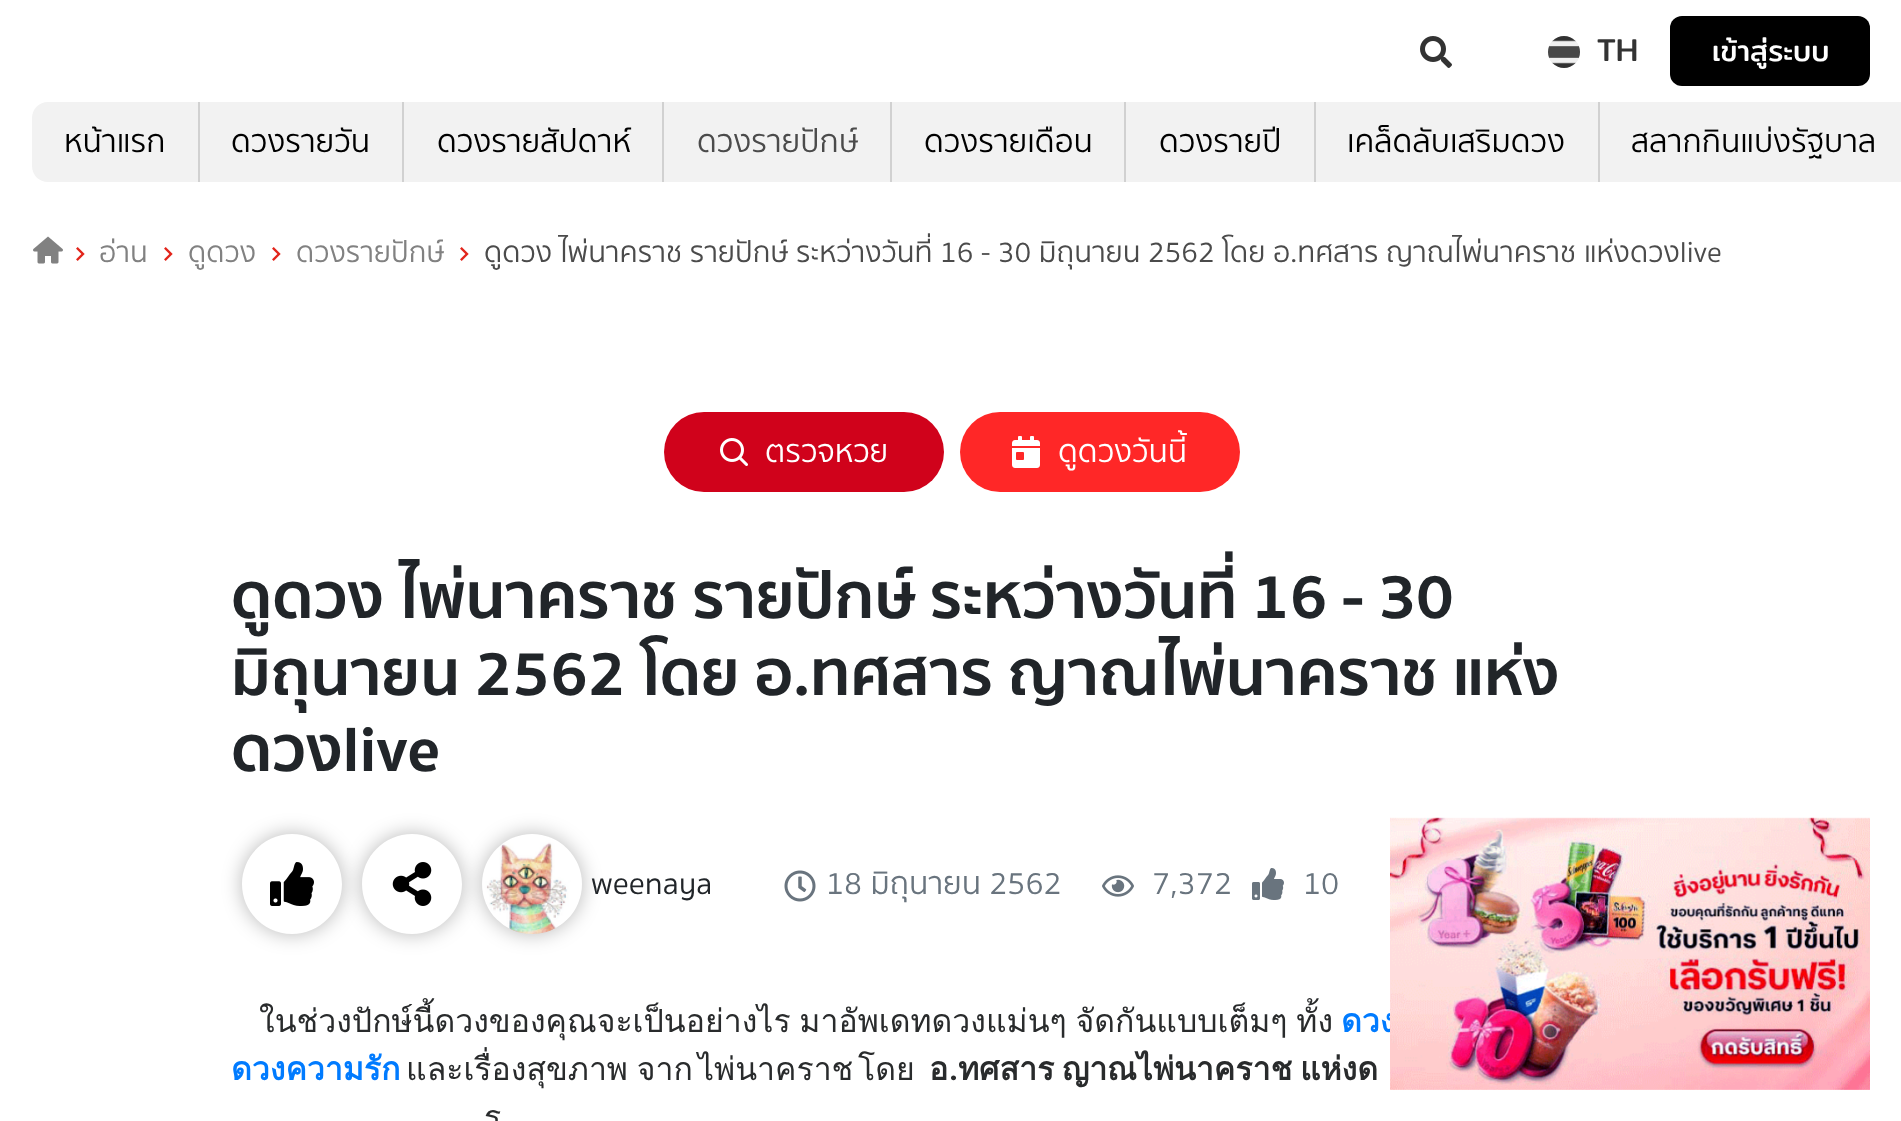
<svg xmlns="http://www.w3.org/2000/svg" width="1901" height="1121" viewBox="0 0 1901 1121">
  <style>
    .t1 { font: 32px Mitr; fill: #333; }
    .t2 { font: 29px Mitr; fill: #fff; }
    .t3 { font: 32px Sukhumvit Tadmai; fill: #000; }
    .t4 { font: 32px Sukhumvit Tadmai; fill: #4b4b4b; }
    .t5 { font: 29.45px Sukhumvit Tadmai; fill: #818181; }
    .t6 { font: 29.45px Sukhumvit Tadmai; fill: #4b4b4b; }
    .t7 { font: 32px Sukhumvit Tadmai; fill: #fff; }
    .t8 { font: bold 64px Sukhumvit Tadmai; fill: #212529; }
    .t9 { font: 32px Sukhumvit Tadmai; fill: #212529; }
    .t10 { font: 32px Sukhumvit Tadmai; fill: #69747e; }
    .t11 { font: 32px Loma; fill: #292b2c; }
    .t12 { font: bold 32px Loma; fill: #007bff; }
    .t13 { font: bold 32px Loma; fill: #292b2c; }
    .t14 { font: bold 32px Roboto; fill: #292b2c; }
  </style>
  <defs>
    <clipPath id="clip1"><path d="M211 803H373V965H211ZM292 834C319.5 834 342 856.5 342 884C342 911.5 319.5 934 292 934C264.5 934 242 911.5 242 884C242 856.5 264.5 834 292 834Z" clip-rule="evenodd"/></clipPath>
    <clipPath id="clip2"><path d="M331 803H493V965H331ZM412 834C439.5 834 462 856.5 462 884C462 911.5 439.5 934 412 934C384.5 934 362 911.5 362 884C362 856.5 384.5 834 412 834Z" clip-rule="evenodd"/></clipPath>
  </defs>
  <rect width="100%" height="100%" fill="#fff"/>
  <image x="1420" y="36" width="32" height="32" href="images/1.png"/>
  <circle cx="1564" cy="52" r="16" fill="#efefef"/>
  <image x="1548" y="36" width="32" height="32" href="images/2.png"/>
  <text x="1597" y="61" class="t1">TH</text>
  <rect x="1670" y="16" width="200" height="70" rx="12" fill="#000"/>
  <text x="1712" y="61" class="t2">เข้าสู่ระบบ</text>
  <path d="M48 102H198V182H48C39 182 32 175 32 166V118C32 109 39 102 48 102Z" fill="#f2f2f2"/>
  <text x="64" y="152" class="t3">หน้าแรก</text>
  <rect x="200" y="102" width="202" height="80" fill="#f2f2f2"/>
  <rect x="198" y="102" width="2" height="80" fill="#d1d1d1"/>
  <text x="231" y="152" class="t3">ดวงรายวัน</text>
  <rect x="404" y="102" width="258" height="80" fill="#f2f2f2"/>
  <rect x="402" y="102" width="2" height="80" fill="#d1d1d1"/>
  <text x="437" y="152" class="t3">ดวงรายสัปดาห์</text>
  <rect x="664" y="102" width="226" height="80" fill="#f2f2f2"/>
  <rect x="662" y="102" width="2" height="80" fill="#d1d1d1"/>
  <text x="697" y="152" class="t4">ดวงรายปักษ์</text>
  <rect x="892" y="102" width="232" height="80" fill="#f2f2f2"/>
  <rect x="890" y="102" width="2" height="80" fill="#d1d1d1"/>
  <text x="924" y="152" class="t3">ดวงรายเดือน</text>
  <rect x="1126" y="102" width="188" height="80" fill="#f2f2f2"/>
  <rect x="1124" y="102" width="2" height="80" fill="#d1d1d1"/>
  <text x="1159" y="152" class="t3">ดวงรายปี</text>
  <rect x="1316" y="102" width="282" height="80" fill="#f2f2f2"/>
  <rect x="1314" y="102" width="2" height="80" fill="#d1d1d1"/>
  <text x="1347" y="152" class="t3">เคล็ดลับเสริมดวง</text>
  <rect x="1600" y="102" width="301" height="80" fill="#f2f2f2"/>
  <rect x="1598" y="102" width="2" height="80" fill="#d1d1d1"/>
  <text x="1631" y="152" class="t3">สลากกินแบ่งรัฐบาล</text>
  <image x="33" y="236" width="30" height="28" href="images/3.png"/>
  <image x="76" y="247" width="9" height="14" href="images/4.png"/>
  <text x="99" y="262" class="t5">อ่าน</text>
  <image x="164" y="247" width="9" height="14" href="images/4.png"/>
  <text x="188" y="262" class="t5">ดูดวง</text>
  <image x="272" y="247" width="9" height="14" href="images/4.png"/>
  <text x="296" y="262" class="t5">ดวงรายปักษ์</text>
  <image x="460" y="247" width="9" height="14" href="images/4.png"/>
  <text x="484" y="262" class="t6">ดูดวง ไพ่นาคราช รายปักษ์ ระหว่างวันที่ 16 - 30 มิถุนายน 2562 โดย อ.ทศสาร ญาณไพ่นาคราช แห่งดวงlive</text>
  <rect x="664" y="412" width="280" height="80" rx="40" fill="#d0021b"/>
  <image x="720" y="438" width="28" height="28" href="images/5.png"/>
  <text x="765" y="462" class="t7">ตรวจหวย</text>
  <rect x="960" y="412" width="280" height="80" rx="40" fill="#ff2727"/>
  <image x="1012" y="436" width="28" height="32" href="images/6.png"/>
  <text x="1058" y="462" class="t7">ดูดวงวันนี้</text>
  <text x="231" y="618" class="t8">ดูดวง ไพ่นาคราช รายปักษ์ ระหว่างวันที่ 16 - 30</text>
  <text x="231" y="695" class="t8">มิถุนายน 2562 โดย อ.ทศสาร ญาณไพ่นาคราช แห่ง</text>
  <text x="231" y="771" class="t8">ดวงlive</text>
  <g clip-path="url(#clip1)">
    <rect x="242" y="834" width="100" height="100" rx="50" fill="#00000047" filter="blur(10px)"/>
  </g>
  <image x="270" y="862" width="44" height="44" href="images/7.png"/>
  <rect x="482" y="834" width="100" height="100" rx="50" fill="#00000047" filter="blur(10px)"/>
  <image x="482" y="834" width="100" height="100" href="images/9.png"/>
  <g clip-path="url(#clip2)">
    <rect x="362" y="834" width="100" height="100" rx="50" fill="#00000047" filter="blur(10px)"/>
  </g>
  <image x="392" y="862" width="40" height="44" href="images/8.png"/>
  <text x="591" y="894" class="t9">weenaya</text>
  <image x="784" y="870" width="32" height="32" href="images/10.png"/>
  <text x="826" y="894" class="t10">18 มิถุนายน 2562</text>
  <image x="1102" y="875" width="32" height="22" href="images/11.png"/>
  <text x="1152" y="894" class="t10">7,372</text>
  <image x="1252" y="868" width="32" height="32" href="images/12.png"/>
  <text x="1303" y="894" class="t10">10</text>
  <text x="259" y="1032" word-spacing="-2" class="t11">ในช่วงปักษ์นี้ดวงของคุณจะเป็นอย่างไร มาอัพเดทดวงแม่นๆ จัดกันแบบเต็มๆ ทั้ง</text>
  <text x="1341" y="1032" class="t12">ดวง</text>
  <text x="231" y="1080" class="t12">ดวงความรัก</text>
  <text x="406" y="1080" word-spacing="-2" class="t11">และเรื่องสุขภาพ จาก</text>
  <text x="698" y="1080" class="t11">ไพ่นาคราช</text>
  <text x="858" y="1080" class="t11">โดย</text>
  <text x="929" y="1080" class="t13">อ</text>
  <text x="949" y="1080" class="t14">.</text>
  <text x="958" y="1080" word-spacing="-3" class="t13">ทศสาร ญาณไพ่นาคราช แห่งด</text>
  <text x="484" y="1128" word-spacing="-3" class="t11">ร</text>
  <image x="1390" y="817" width="480" height="273" href="images/13.png"/>
</svg>
